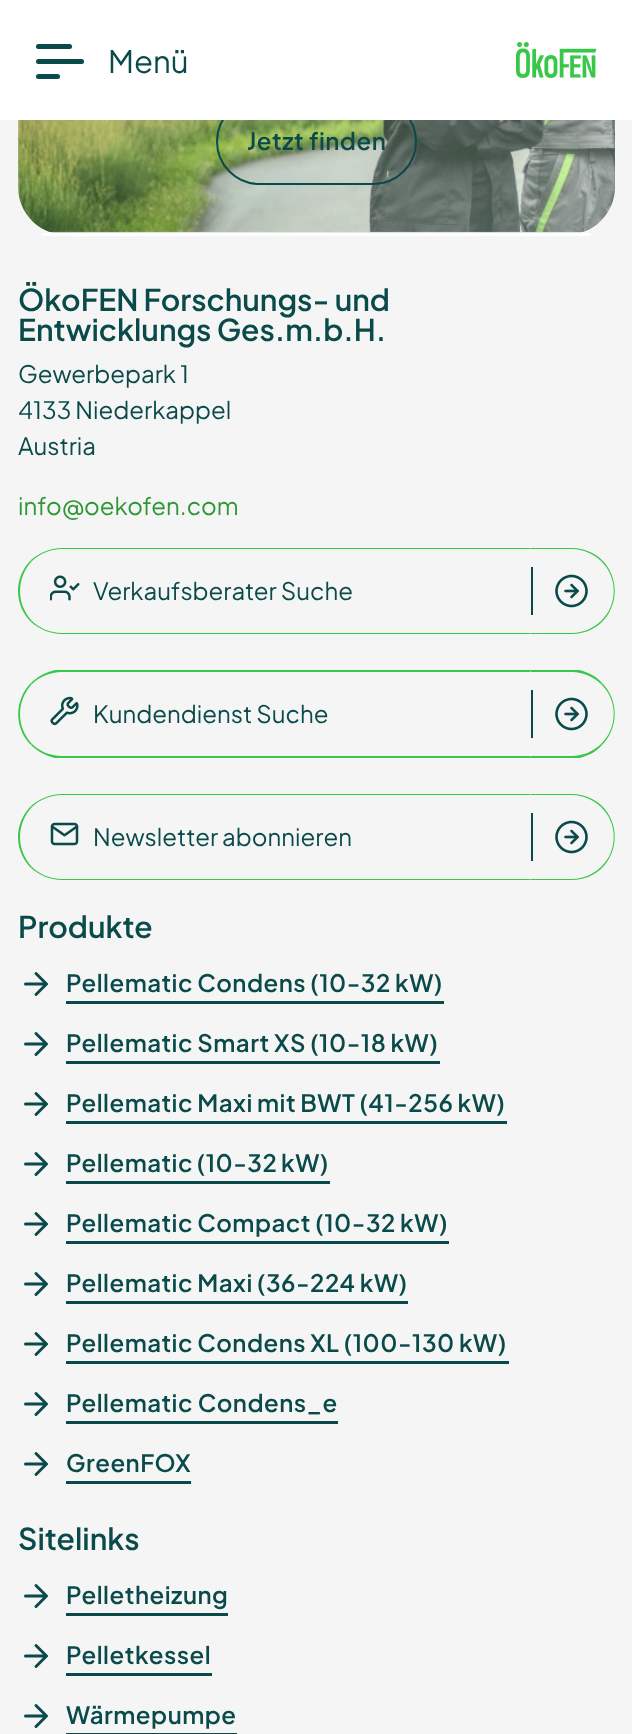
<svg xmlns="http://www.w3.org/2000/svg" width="632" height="1734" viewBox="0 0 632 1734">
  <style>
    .t1 { font: 31px Plus Jakarta Sans; fill: #0a4a4a; }
    .t2 { font: 600 24px Plus Jakarta Sans; letter-spacing: 0.5px; fill: #0a4a4a; }
    .t3 { font: 600 30px Plus Jakarta Sans; fill: #0a4a4a; }
    .t4 { font: 24px Plus Jakarta Sans; fill: #0a4a4a; }
    .t5 { font: 24px Plus Jakarta Sans; fill: #2d9732; }
  </style>
  <rect width="100%" height="100%" fill="#f5f5f5"/>
  <rect x="18" y="-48" width="597" height="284" rx="48" fill="#fff"/>
  <image x="18" y="120" width="597" height="113" href="images/2.png"/>
  <rect x="217" y="99" width="199" height="85" rx="42.5" fill="none" stroke="#0a4a4a" stroke-width="2"/>
  <rect x="0" y="0" width="632" height="120" fill="#fff"/>
  <rect x="36" y="59" width="48" height="5" rx="2.5" fill="#0a4a4a"/>
  <rect x="36" y="44" width="36" height="5" rx="2.5" fill="#0a4a4a"/>
  <rect x="36" y="74" width="24" height="5" rx="2.5" fill="#0a4a4a"/>
  <text x="108" y="73" class="t1">Menü</text>
  <image x="516" y="42" width="81" height="36" href="images/1.png"/>
  <rect x="42" y="233" width="549" height="3" fill="#fff"/>
  <text x="247" y="150" class="t2">Jetzt finden</text>
  <text x="18" y="311" class="t3">ÖkoFEN Forschungs- und</text>
  <text x="18" y="341" class="t3">Entwicklungs Ges.m.b.H.</text>
  <text x="18" y="383" class="t4">Gewerbepark 1</text>
  <text x="18" y="419" class="t4">4133 Niederkappel</text>
  <text x="18" y="455" class="t4">Austria</text>
  <text x="18" y="515" class="t5">info@oekofen.com</text>
  <path d="M62 548C50 548 39 553 31 560L32 561C39 554 50 549 62 549H530V548Z" fill="#39c749"/>
  <path d="M530 634H62C50 634 39 629 31 622L32 621C39 628 50 633 62 633H530Z" fill="#39c749"/>
  <path d="M18 591C18 603 23 614 31 622L32 621C16 604 16 578 32 561L31 560C23 568 18 579 18 591Z" fill="#39c749"/>
  <image x="50" y="575" width="30" height="26" href="images/3.png"/>
  <text x="93" y="600" class="t4">Verkaufsberater Suche</text>
  <path d="M530 548L531 549H572C583 549 594 554 601 561L602 560C595 553 584 548 572 548Z" fill="#39c749"/>
  <path d="M602 560C619 577 619 605 602 622L601 621C618 605 618 577 601 561Z" fill="#39c749"/>
  <path d="M602 622C595 629 584 634 572 634H530L531 633H572C583 633 594 628 601 621Z" fill="#39c749"/>
  <rect x="531" y="567" width="2" height="48" fill="#0a4a4a"/>
  <image x="555" y="574" width="33" height="34" href="images/4.png"/>
  <path d="M62 672C50 672 39 677 32 684L31 683C37 677 46 672 55 670H531L530 672Z" fill="#39c749"/>
  <path d="M531 758H55C46 756 37 751 31 745L32 744C39 751 50 756 62 756H530Z" fill="#39c749"/>
  <path d="M31 745C14 728 14 700 31 683L32 684C16 701 16 727 32 744Z" fill="#39c749"/>
  <image x="50" y="696" width="29" height="30" href="images/5.png"/>
  <text x="93" y="723" class="t4">Kundendienst Suche</text>
  <path d="M531 672L530 670H579C588 672 596 676 602 683L601 684C594 677 583 672 572 672Z" fill="#39c749"/>
  <path d="M602 683C619 700 619 728 602 745L601 744C618 728 618 700 601 684Z" fill="#39c749"/>
  <path d="M530 758L531 756H572C583 756 594 751 601 744L602 745C596 752 588 756 579 758Z" fill="#39c749"/>
  <rect x="531" y="690" width="2" height="48" fill="#0a4a4a"/>
  <image x="555" y="697" width="33" height="34" href="images/4.png"/>
  <path d="M62 794C50 794 39 799 31 806L32 807C39 800 50 795 62 795H530V794Z" fill="#39c749"/>
  <path d="M530 880H62C50 880 39 875 31 868L32 867C39 874 50 879 62 879H530Z" fill="#39c749"/>
  <path d="M18 837C18 849 23 860 31 868L32 867C16 850 16 824 32 807L31 806C23 814 18 825 18 837Z" fill="#39c749"/>
  <image x="50" y="822" width="29" height="24" href="images/6.png"/>
  <text x="93" y="846" class="t4">Newsletter abonnieren</text>
  <path d="M530 794L531 795H572C583 795 594 800 601 807L602 806C595 799 584 794 572 794Z" fill="#39c749"/>
  <path d="M602 806C619 823 619 851 602 868L601 867C618 851 618 823 601 807Z" fill="#39c749"/>
  <path d="M602 868C595 875 584 880 572 880H530L531 879H572C583 879 594 874 601 867Z" fill="#39c749"/>
  <rect x="531" y="813" width="2" height="48" fill="#0a4a4a"/>
  <image x="555" y="820" width="33" height="34" href="images/4.png"/>
  <text x="18" y="938" class="t3">Produkte</text>
  <path d="M25.5 984H46.5M36 973.5L46.5 984L36 994.5" fill="none" stroke="#0a4a4a" stroke-width="3" stroke-linecap="round" stroke-linejoin="round"/>
  <text x="66" y="992" word-spacing="-0.5" class="t2">Pellematic Condens (10-32 kW)</text>
  <rect x="66" y="1001" width="378" height="3" fill="#0a4a4a"/>
  <path d="M25.5 1044H46.5M36 1033.5L46.5 1044L36 1054.5" fill="none" stroke="#0a4a4a" stroke-width="3" stroke-linecap="round" stroke-linejoin="round"/>
  <text x="66" y="1052" word-spacing="-0.5" class="t2">Pellematic Smart XS (10-18 kW)</text>
  <rect x="66" y="1061" width="374" height="3" fill="#0a4a4a"/>
  <path d="M25.5 1104H46.5M36 1093.5L46.5 1104L36 1114.5" fill="none" stroke="#0a4a4a" stroke-width="3" stroke-linecap="round" stroke-linejoin="round"/>
  <text x="66" y="1112" word-spacing="-0.5" class="t2">Pellematic Maxi mit BWT (41-256 kW)</text>
  <rect x="66" y="1121" width="441" height="3" fill="#0a4a4a"/>
  <path d="M25.5 1164H46.5M36 1153.5L46.5 1164L36 1174.5" fill="none" stroke="#0a4a4a" stroke-width="3" stroke-linecap="round" stroke-linejoin="round"/>
  <text x="66" y="1172" word-spacing="-1" class="t2">Pellematic (10-32 kW)</text>
  <rect x="66" y="1181" width="264" height="3" fill="#0a4a4a"/>
  <path d="M25.5 1224H46.5M36 1213.5L46.5 1224L36 1234.5" fill="none" stroke="#0a4a4a" stroke-width="3" stroke-linecap="round" stroke-linejoin="round"/>
  <text x="66" y="1232" word-spacing="-0.5" class="t2">Pellematic Compact (10-32 kW)</text>
  <rect x="66" y="1241" width="383" height="3" fill="#0a4a4a"/>
  <path d="M25.5 1284H46.5M36 1273.5L46.5 1284L36 1294.5" fill="none" stroke="#0a4a4a" stroke-width="3" stroke-linecap="round" stroke-linejoin="round"/>
  <text x="66" y="1292" word-spacing="-0.5" class="t2">Pellematic Maxi (36-224 kW)</text>
  <rect x="66" y="1301" width="342" height="3" fill="#0a4a4a"/>
  <path d="M25.5 1344H46.5M36 1333.5L46.5 1344L36 1354.5" fill="none" stroke="#0a4a4a" stroke-width="3" stroke-linecap="round" stroke-linejoin="round"/>
  <text x="66" y="1352" word-spacing="-0.5" class="t2">Pellematic Condens XL (100-130 kW)</text>
  <rect x="66" y="1361" width="443" height="3" fill="#0a4a4a"/>
  <path d="M25.5 1404H46.5M36 1393.5L46.5 1404L36 1414.5" fill="none" stroke="#0a4a4a" stroke-width="3" stroke-linecap="round" stroke-linejoin="round"/>
  <text x="66" y="1412" class="t2">Pellematic Condens_e</text>
  <rect x="66" y="1421" width="272" height="3" fill="#0a4a4a"/>
  <path d="M25.5 1464H46.5M36 1453.5L46.5 1464L36 1474.5" fill="none" stroke="#0a4a4a" stroke-width="3" stroke-linecap="round" stroke-linejoin="round"/>
  <text x="66" y="1472" class="t2">GreenFOX</text>
  <rect x="66" y="1481" width="125" height="3" fill="#0a4a4a"/>
  <text x="18" y="1550" class="t3">Sitelinks</text>
  <path d="M25.5 1596H46.5M36 1585.5L46.5 1596L36 1606.5" fill="none" stroke="#0a4a4a" stroke-width="3" stroke-linecap="round" stroke-linejoin="round"/>
  <text x="66" y="1604" class="t2">Pelletheizung</text>
  <rect x="66" y="1613" width="162" height="3" fill="#0a4a4a"/>
  <path d="M25.5 1656H46.5M36 1645.5L46.5 1656L36 1666.5" fill="none" stroke="#0a4a4a" stroke-width="3" stroke-linecap="round" stroke-linejoin="round"/>
  <text x="66" y="1664" class="t2">Pelletkessel</text>
  <rect x="66" y="1673" width="146" height="3" fill="#0a4a4a"/>
  <path d="M25.5 1716H46.5M36 1705.5L46.5 1716L36 1726.5" fill="none" stroke="#0a4a4a" stroke-width="3" stroke-linecap="round" stroke-linejoin="round"/>
  <text x="66" y="1724" class="t2">Wärmepumpe</text>
  <rect x="66" y="1733" width="171" height="1" fill="#0a4a4a"/>
</svg>
